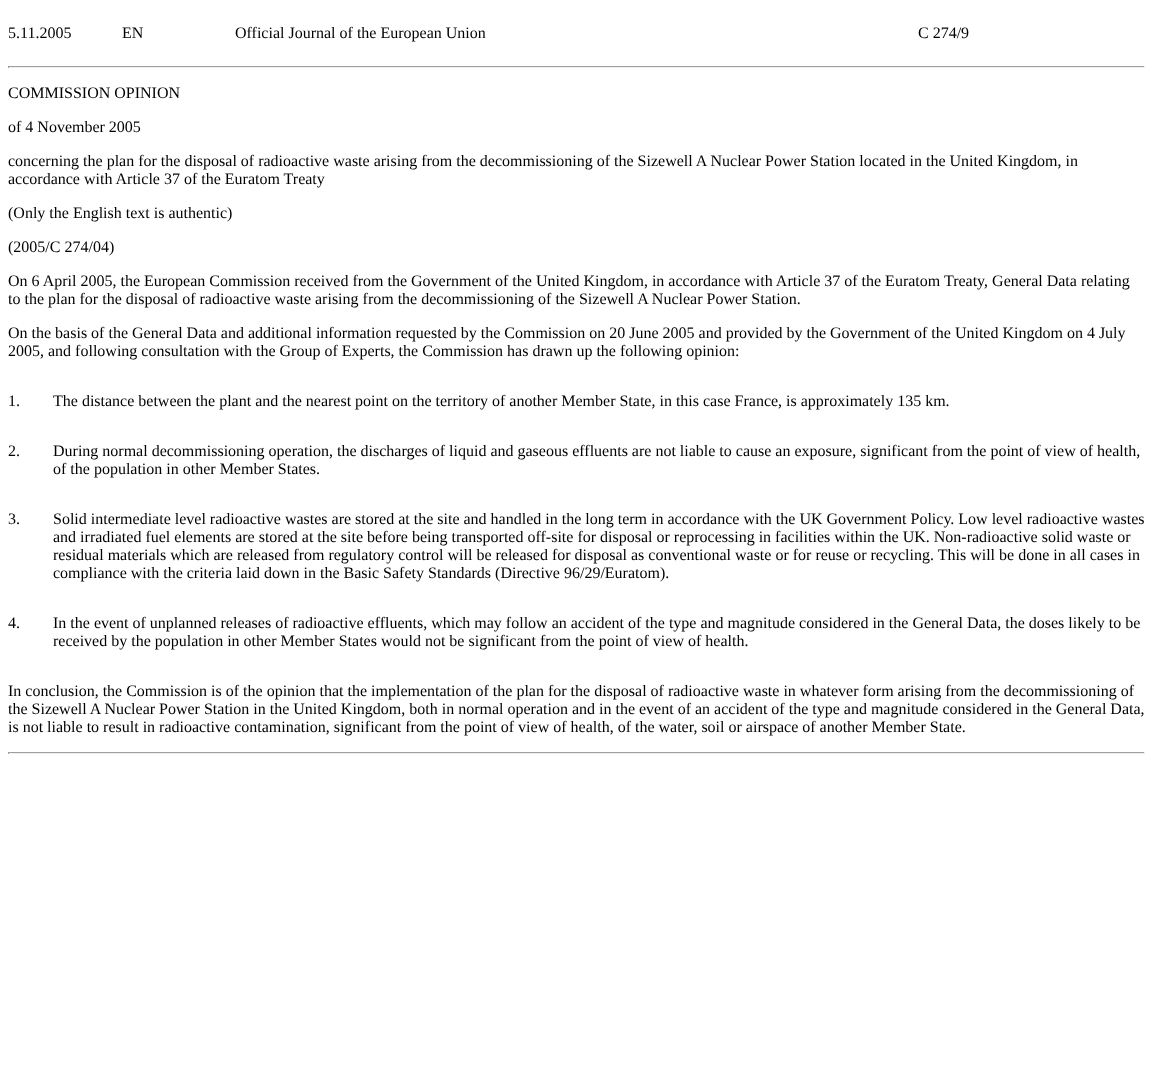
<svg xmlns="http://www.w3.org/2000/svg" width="1153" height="1080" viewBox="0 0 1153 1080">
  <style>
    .t1 { font: 16px Liberation Serif; fill: #000; }
  </style>
  <rect width="100%" height="100%" fill="#fff"/>
  <text x="8" y="38" class="t1">5.11.2005</text>
  <text x="122" y="38" class="t1">EN</text>
  <text x="235" y="38" class="t1">Official Journal of the European Union</text>
  <text x="918" y="38" class="t1">C 274/9</text>
  <rect x="8" y="66" width="1137" height="1" fill="#9f9f9f"/>
  <rect x="1144" y="66" width="1" height="2" fill="#eee"/>
  <rect x="8" y="67" width="1137" height="1" fill="#eee"/>
  <rect x="8" y="66" width="1" height="2" fill="#9f9f9f"/>
  <text x="8" y="98" class="t1">COMMISSION OPINION</text>
  <text x="8" y="132" class="t1">of 4 November 2005</text>
  <text x="8" y="166" class="t1">concerning the plan for the disposal of radioactive waste arising from the decommissioning of the Sizewell A Nuclear Power Station located in the United Kingdom, in</text>
  <text x="8" y="184" class="t1">accordance with Article 37 of the Euratom Treaty</text>
  <text x="8" y="218" class="t1">(Only the English text is authentic)</text>
  <text x="8" y="252" class="t1">(2005/C 274/04)</text>
  <text x="8" y="286" class="t1">On 6 April 2005, the European Commission received from the Government of the United Kingdom, in accordance with Article 37 of the Euratom Treaty, General Data relating</text>
  <text x="8" y="304" class="t1">to the plan for the disposal of radioactive waste arising from the decommissioning of the Sizewell A Nuclear Power Station.</text>
  <text x="8" y="338" class="t1">On the basis of the General Data and additional information requested by the Commission on 20 June 2005 and provided by the Government of the United Kingdom on 4 July</text>
  <text x="8" y="356" class="t1">2005, and following consultation with the Group of Experts, the Commission has drawn up the following opinion:</text>
  <text x="8" y="406" class="t1">1.</text>
  <text x="53" y="406" class="t1">The distance between the plant and the nearest point on the territory of another Member State, in this case France, is approximately 135 km.</text>
  <text x="8" y="456" class="t1">2.</text>
  <text x="53" y="456" class="t1">During normal decommissioning operation, the discharges of liquid and gaseous effluents are not liable to cause an exposure, significant from the point of view of health,</text>
  <text x="53" y="474" class="t1">of the population in other Member States.</text>
  <text x="8" y="524" class="t1">3.</text>
  <text x="53" y="524" class="t1">Solid intermediate level radioactive wastes are stored at the site and handled in the long term in accordance with the UK Government Policy. Low level radioactive wastes</text>
  <text x="53" y="542" class="t1">and irradiated fuel elements are stored at the site before being transported off-site for disposal or reprocessing in facilities within the UK. Non-radioactive solid waste or</text>
  <text x="53" y="560" class="t1">residual materials which are released from regulatory control will be released for disposal as conventional waste or for reuse or recycling. This will be done in all cases in</text>
  <text x="53" y="578" class="t1">compliance with the criteria laid down in the Basic Safety Standards (Directive 96/29/Euratom).</text>
  <text x="8" y="628" class="t1">4.</text>
  <text x="53" y="628" class="t1">In the event of unplanned releases of radioactive effluents, which may follow an accident of the type and magnitude considered in the General Data, the doses likely to be</text>
  <text x="53" y="646" class="t1">received by the population in other Member States would not be significant from the point of view of health.</text>
  <text x="8" y="696" class="t1">In conclusion, the Commission is of the opinion that the implementation of the plan for the disposal of radioactive waste in whatever form arising from the decommissioning of</text>
  <text x="8" y="714" class="t1">the Sizewell A Nuclear Power Station in the United Kingdom, both in normal operation and in the event of an accident of the type and magnitude considered in the General Data,</text>
  <text x="8" y="732" class="t1">is not liable to result in radioactive contamination, significant from the point of view of health, of the water, soil or airspace of another Member State.</text>
  <rect x="8" y="752" width="1137" height="1" fill="#9f9f9f"/>
  <rect x="1144" y="752" width="1" height="2" fill="#eee"/>
  <rect x="8" y="753" width="1137" height="1" fill="#eee"/>
  <rect x="8" y="752" width="1" height="2" fill="#9f9f9f"/>
</svg>
